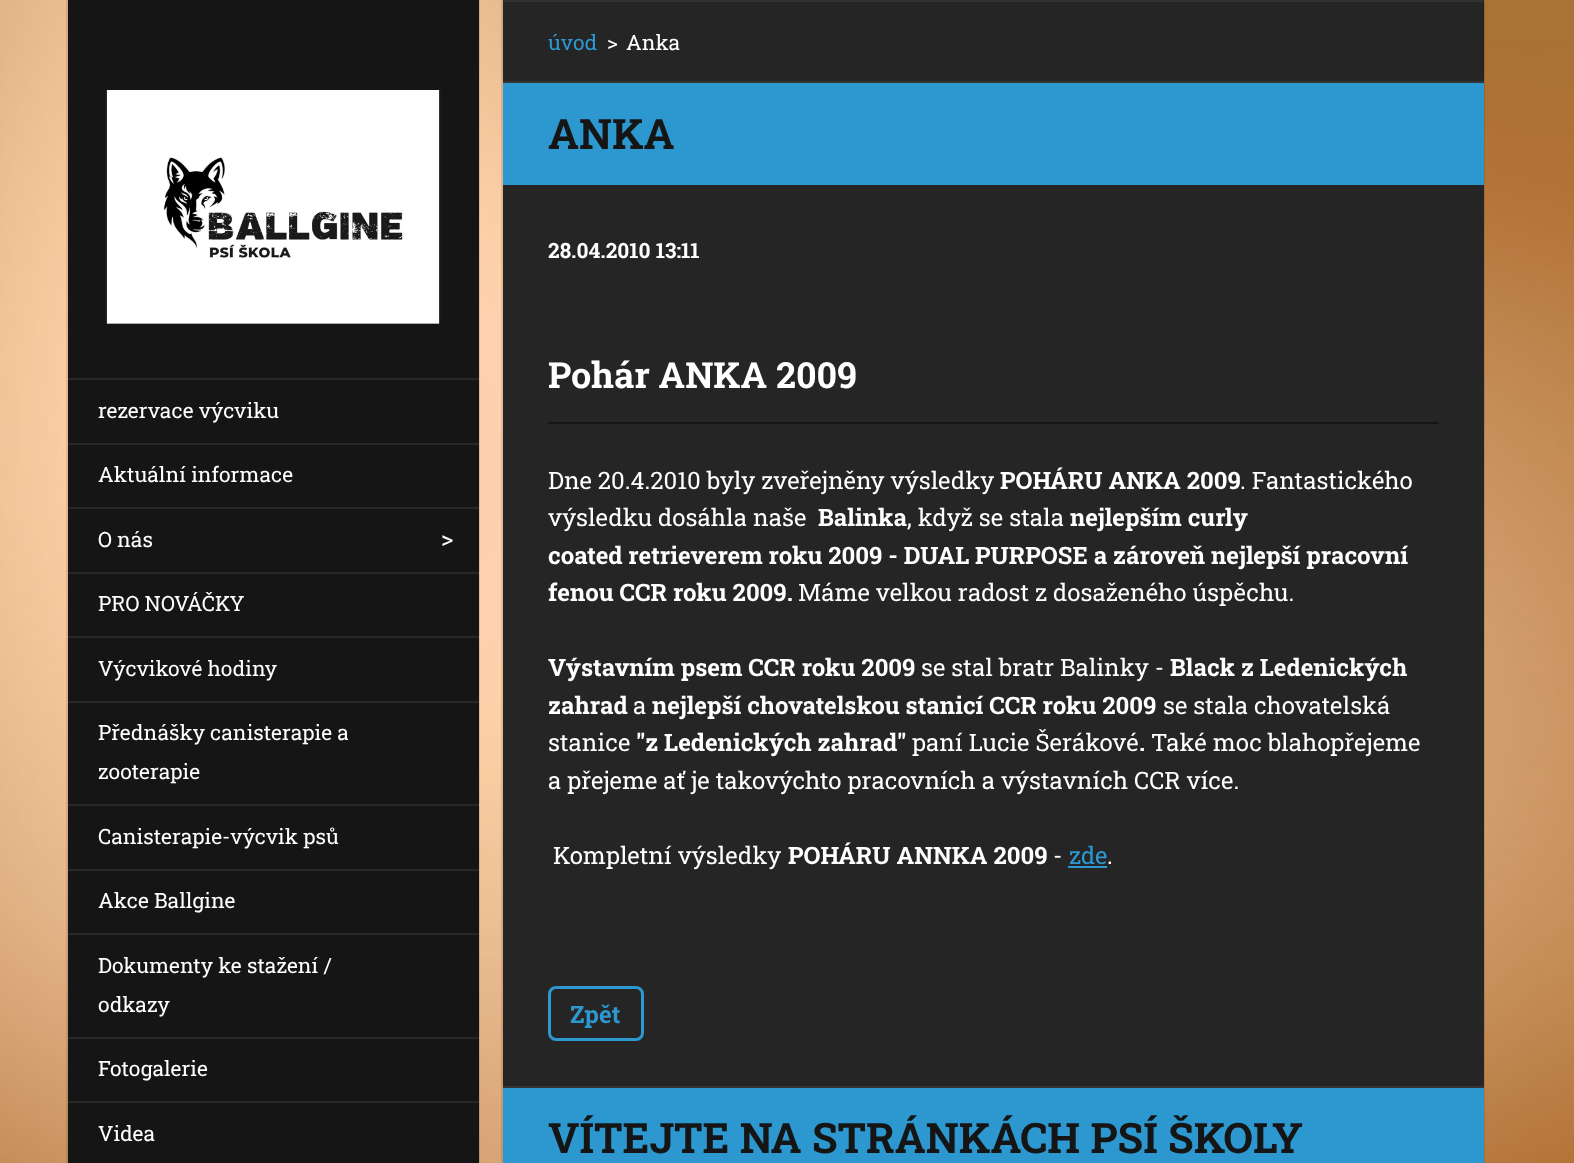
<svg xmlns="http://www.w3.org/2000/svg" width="1574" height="1163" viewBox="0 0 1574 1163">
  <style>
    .t1 { font: 21px Roboto Slab; fill: #fff; }
    .t2 { font: 24px Roboto Slab; fill: #fff; }
    .t3 { font: 21px Roboto Slab; fill: #2d98d0; }
    .t4 { font: bold 42px Roboto Slab; fill: #151515; }
    .t5 { font: bold 21px Roboto Slab; fill: #fff; }
    .t6 { font: bold 36px Roboto Slab; fill: #fff; }
    .t7 { font: bold 24px Roboto Slab; fill: #fff; }
    .t8 { font: 24px Roboto Slab; fill: #2d98d0; }
    .t9 { font: bold 24px Roboto Slab; fill: #2d98d0; }
  </style>
  <rect width="100%" height="100%" fill="#fff"/>
  <image x="0" y="0" width="1574" height="1163" href="images/1.png"/>
  <rect x="68" y="380" width="411" height="783" fill="#151515"/>
  <rect x="67" y="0" width="412" height="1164" fill="none" stroke="#0000001a" stroke-width="2"/>
  <rect x="68" y="0" width="411" height="378" fill="#151515"/>
  <image x="105" y="90" width="336" height="234" href="images/2.png"/>
  <rect x="68" y="378" width="411" height="2" fill="#272727"/>
  <text x="98" y="418" class="t1">rezervace výcviku</text>
  <rect x="68" y="443" width="411" height="2" fill="#272727"/>
  <text x="98" y="482" class="t1">Aktuální informace</text>
  <rect x="68" y="507" width="411" height="2" fill="#272727"/>
  <text x="98" y="547" class="t1">O nás</text>
  <text x="441" y="547" class="t2">&gt;</text>
  <rect x="68" y="572" width="411" height="2" fill="#272727"/>
  <text x="98" y="611" class="t1">PRO NOVÁČKY</text>
  <rect x="68" y="636" width="411" height="2" fill="#272727"/>
  <text x="98" y="676" class="t1">Výcvikové hodiny</text>
  <rect x="68" y="701" width="411" height="2" fill="#272727"/>
  <text x="98" y="740" class="t1">Přednášky canisterapie a</text>
  <text x="98" y="779" class="t1">zooterapie</text>
  <rect x="68" y="804" width="411" height="2" fill="#272727"/>
  <text x="98" y="844" class="t1">Canisterapie-výcvik psů</text>
  <rect x="68" y="869" width="411" height="2" fill="#272727"/>
  <text x="98" y="908" class="t1">Akce Ballgine</text>
  <rect x="68" y="933" width="411" height="2" fill="#272727"/>
  <text x="98" y="973" class="t1">Dokumenty ke stažení /</text>
  <text x="98" y="1012" class="t1">odkazy</text>
  <rect x="68" y="1037" width="411" height="2" fill="#272727"/>
  <text x="98" y="1076" class="t1">Fotogalerie</text>
  <rect x="68" y="1101" width="411" height="2" fill="#272727"/>
  <text x="98" y="1141" class="t1">Videa</text>
  <rect x="503" y="2" width="981" height="79" fill="#252525"/>
  <rect x="503" y="0" width="981" height="2" fill="#353535"/>
  <rect x="502" y="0" width="982" height="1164" fill="none" stroke="#0000001a" stroke-width="2"/>
  <text x="548" y="50" class="t3">úvod</text>
  <text x="607" y="50" class="t1">&gt;</text>
  <text x="626" y="50" class="t1">Anka</text>
  <rect x="503" y="81" width="981" height="2" fill="#353535"/>
  <rect x="503" y="83" width="981" height="102" fill="#2d98d0"/>
  <text x="548" y="149" class="t4">ANKA</text>
  <rect x="503" y="185" width="981" height="901" fill="#252525"/>
  <text x="548" y="258" class="t5">28.04.2010 13:11</text>
  <rect x="548" y="422" width="891" height="2" fill="#151515"/>
  <text x="548" y="388" class="t6">Pohár ANKA 2009</text>
  <text x="548" y="489" class="t2">Dne 20.4.2010 byly zveřejněny výsledky</text>
  <text x="1000" y="489" class="t7">POHÁRU ANKA 2009</text>
  <text x="1240" y="489" class="t2">. Fantastického</text>
  <text x="548" y="526" class="t2">výsledku dosáhla naše</text>
  <text x="818" y="526" class="t7">Balinka</text>
  <text x="907" y="526" class="t2">, když se stala</text>
  <text x="1070" y="526" class="t7">nejlepším curly</text>
  <text x="548" y="564" class="t7">coated retrieverem roku 2009 - DUAL PURPOSE a zároveň nejlepší pracovní</text>
  <text x="548" y="601" class="t7">fenou CCR roku 2009.</text>
  <text x="798" y="601" class="t2">Máme velkou radost z dosaženého úspěchu.</text>
  <text x="548" y="676" class="t7">Výstavním psem CCR roku 2009</text>
  <text x="921" y="676" class="t2">se stal bratr Balinky -</text>
  <text x="1170" y="676" class="t7">Black z Ledenických</text>
  <text x="548" y="714" class="t7">zahrad</text>
  <text x="633" y="714" class="t2">a</text>
  <text x="652" y="714" class="t7">nejlepší chovatelskou stanicí CCR roku 2009</text>
  <text x="1163" y="714" class="t2">se stala chovatelská</text>
  <text x="548" y="751" class="t2">stanice</text>
  <text x="636" y="751" class="t7">"z Ledenických zahrad"</text>
  <text x="912" y="751" class="t2">paní Lucie Šerákové</text>
  <text x="1139" y="751" class="t7">.</text>
  <text x="1151" y="751" class="t2">Také moc blahopřejeme</text>
  <text x="548" y="789" class="t2">a přejeme ať je takovýchto pracovních a výstavních CCR více.</text>
  <text x="553" y="864" class="t2">Kompletní výsledky</text>
  <text x="788" y="864" class="t7">POHÁRU ANNKA 2009</text>
  <text x="1053" y="864" class="t2">-</text>
  <text x="1069" y="864" class="t8">zde</text>
  <rect x="1068" y="866" width="39" height="2" fill="#2d98d0"/>
  <text x="1107" y="864" class="t2">.</text>
  <rect x="549.5" y="987.5" width="93" height="52" rx="6.5" fill="none" stroke="#2d98d0" stroke-width="3"/>
  <text x="570" y="1023" class="t9">Zpět</text>
  <rect x="503" y="1086" width="981" height="2" fill="#353535"/>
  <rect x="503" y="1088" width="981" height="75" fill="#2d98d0"/>
  <text x="548" y="1153" class="t4">VÍTEJTE NA STRÁNKÁCH PSÍ ŠKOLY</text>
</svg>
